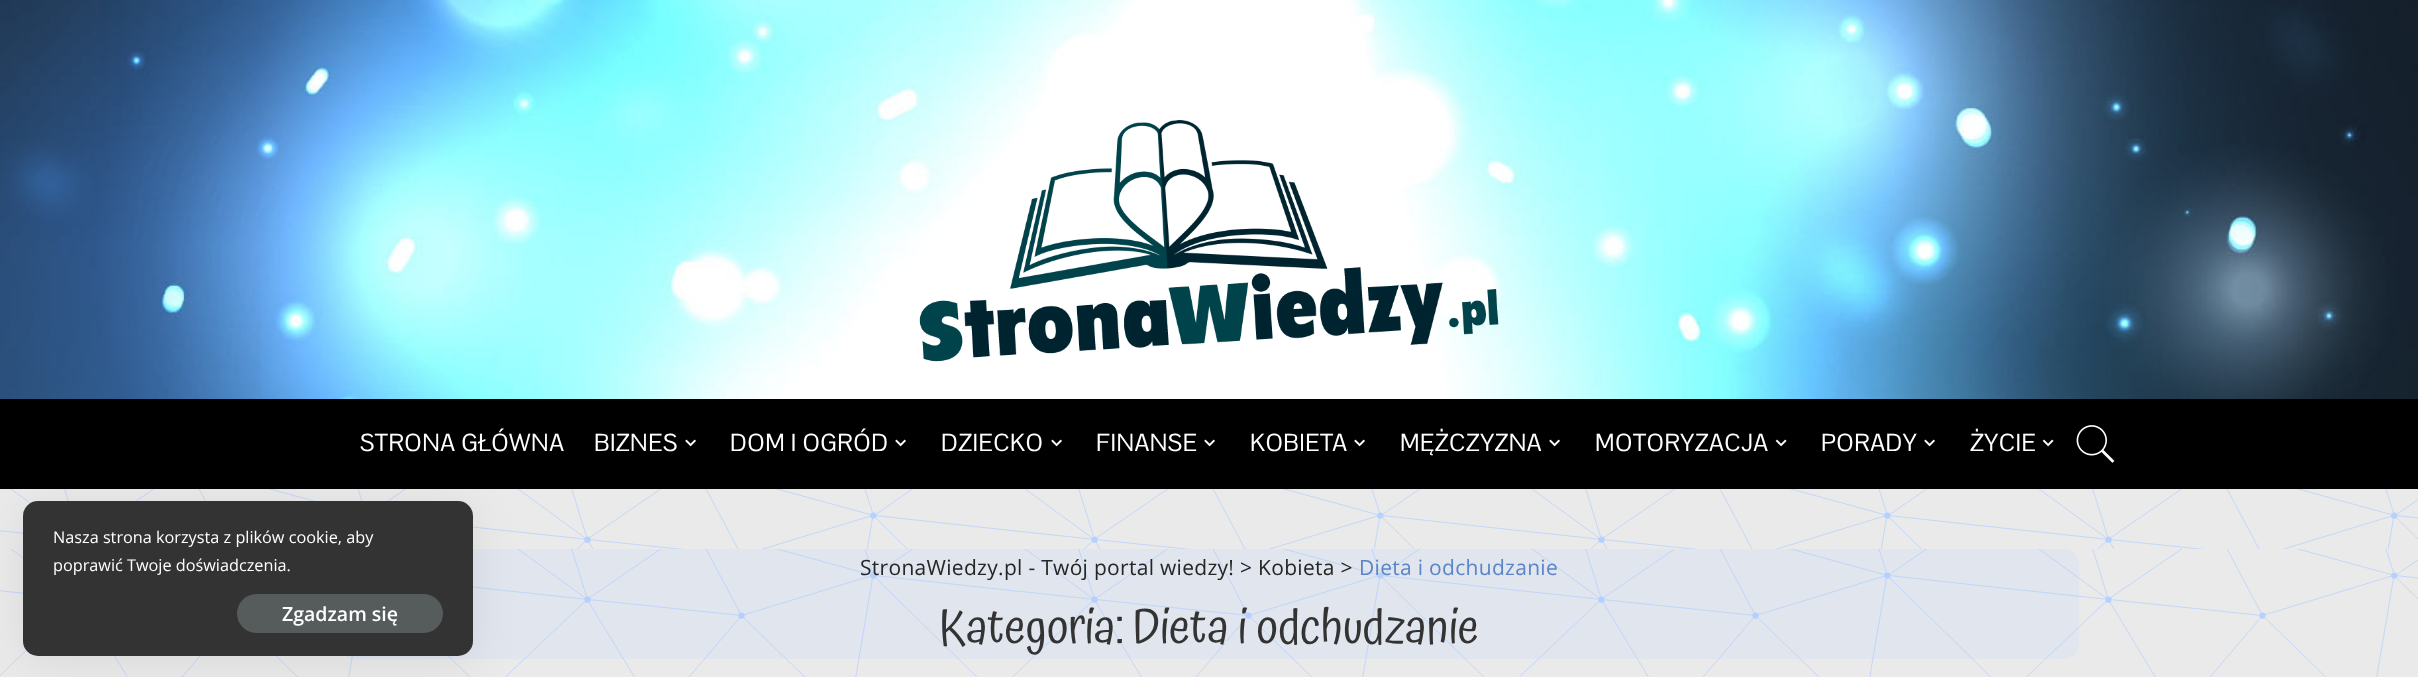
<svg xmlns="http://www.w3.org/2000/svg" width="2418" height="677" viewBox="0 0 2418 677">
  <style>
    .t1 { font: 16.25px Open Sans; fill: #fff; }
    .t2 { font: 600 19.5px Open Sans; fill: #fff; }
    .t3 { font: 24px Pontano Sans; letter-spacing: 0.5px; fill: #fff; }
    .t4 { font: 21px Open Sans; letter-spacing: 0.3px; fill: #262626; }
    .t5 { font: 21px Open Sans; letter-spacing: 0.3px; fill: #5a85c8; }
    .t6 { font: 48px Atma; fill: #333; }
  </style>
  <rect width="100%" height="100%" fill="#fff"/>
  <rect x="0" y="399" width="2418" height="90" fill="#000"/>
  <rect x="0" y="489" width="2418" height="188" fill="#eaeaea"/>
  <image x="0" y="489" width="2418" height="60" href="images/6.png"/>
  <image x="0" y="549" width="2418" height="128" href="images/7.png"/>
  <rect x="339" y="549" width="1740" height="110" rx="15" fill="#b5d1ff30"/>
  <rect x="23" y="507" width="450" height="155" rx="15" fill="#00000012" filter="blur(22.5px)"/>
  <rect x="23" y="501" width="450" height="155" rx="15" fill="#333"/>
  <text x="53" y="543" class="t1">Nasza strona korzysta z plików cookie, aby</text>
  <text x="53" y="571" class="t1">poprawić Twoje doświadczenia.</text>
  <rect x="237" y="594" width="206" height="39" rx="19.5" fill="#565c5c"/>
  <text x="282" y="621" class="t2">Zgadzam się</text>
  <image x="0" y="0" width="2418" height="399" href="images/1.png"/>
  <image x="919" y="120" width="580" height="242" href="images/2.png"/>
  <text x="360" y="451" class="t3">STRONA GŁÓWNA</text>
  <text x="594" y="451" class="t3">BIZNES</text>
  <image x="685" y="439" width="11" height="8" href="images/3.png"/>
  <text x="730" y="451" class="t3">DOM I OGRÓD</text>
  <image x="895" y="439" width="11" height="8" href="images/3.png"/>
  <text x="941" y="451" class="t3">DZIECKO</text>
  <image x="1051" y="439" width="11" height="8" href="images/3.png"/>
  <text x="1096" y="451" class="t3">FINANSE</text>
  <image x="1204" y="439" width="11" height="8" href="images/3.png"/>
  <text x="1250" y="451" class="t3">KOBIETA</text>
  <image x="1354" y="439" width="11" height="8" href="images/3.png"/>
  <text x="1400" y="451" class="t3">MĘŻCZYZNA</text>
  <image x="1549" y="439" width="11" height="8" href="images/3.png"/>
  <text x="1595" y="451" class="t3">MOTORYZACJA</text>
  <image x="1775" y="439" width="12" height="8" href="images/4.png"/>
  <text x="1821" y="451" class="t3">PORADY</text>
  <image x="1924" y="439" width="11" height="8" href="images/3.png"/>
  <text x="1970" y="451" class="t3">ŻYCIE</text>
  <image x="2042" y="439" width="12" height="8" href="images/4.png"/>
  <image x="2076" y="425" width="39" height="38" href="images/5.png"/>
  <text x="860" y="575" class="t4">StronaWiedzy.pl - Twój portal wiedzy! &gt; Kobieta &gt;</text>
  <text x="1359" y="575" class="t5">Dieta i odchudzanie</text>
  <text x="939" y="643" class="t6">Kategoria: Dieta i odchudzanie</text>
</svg>
